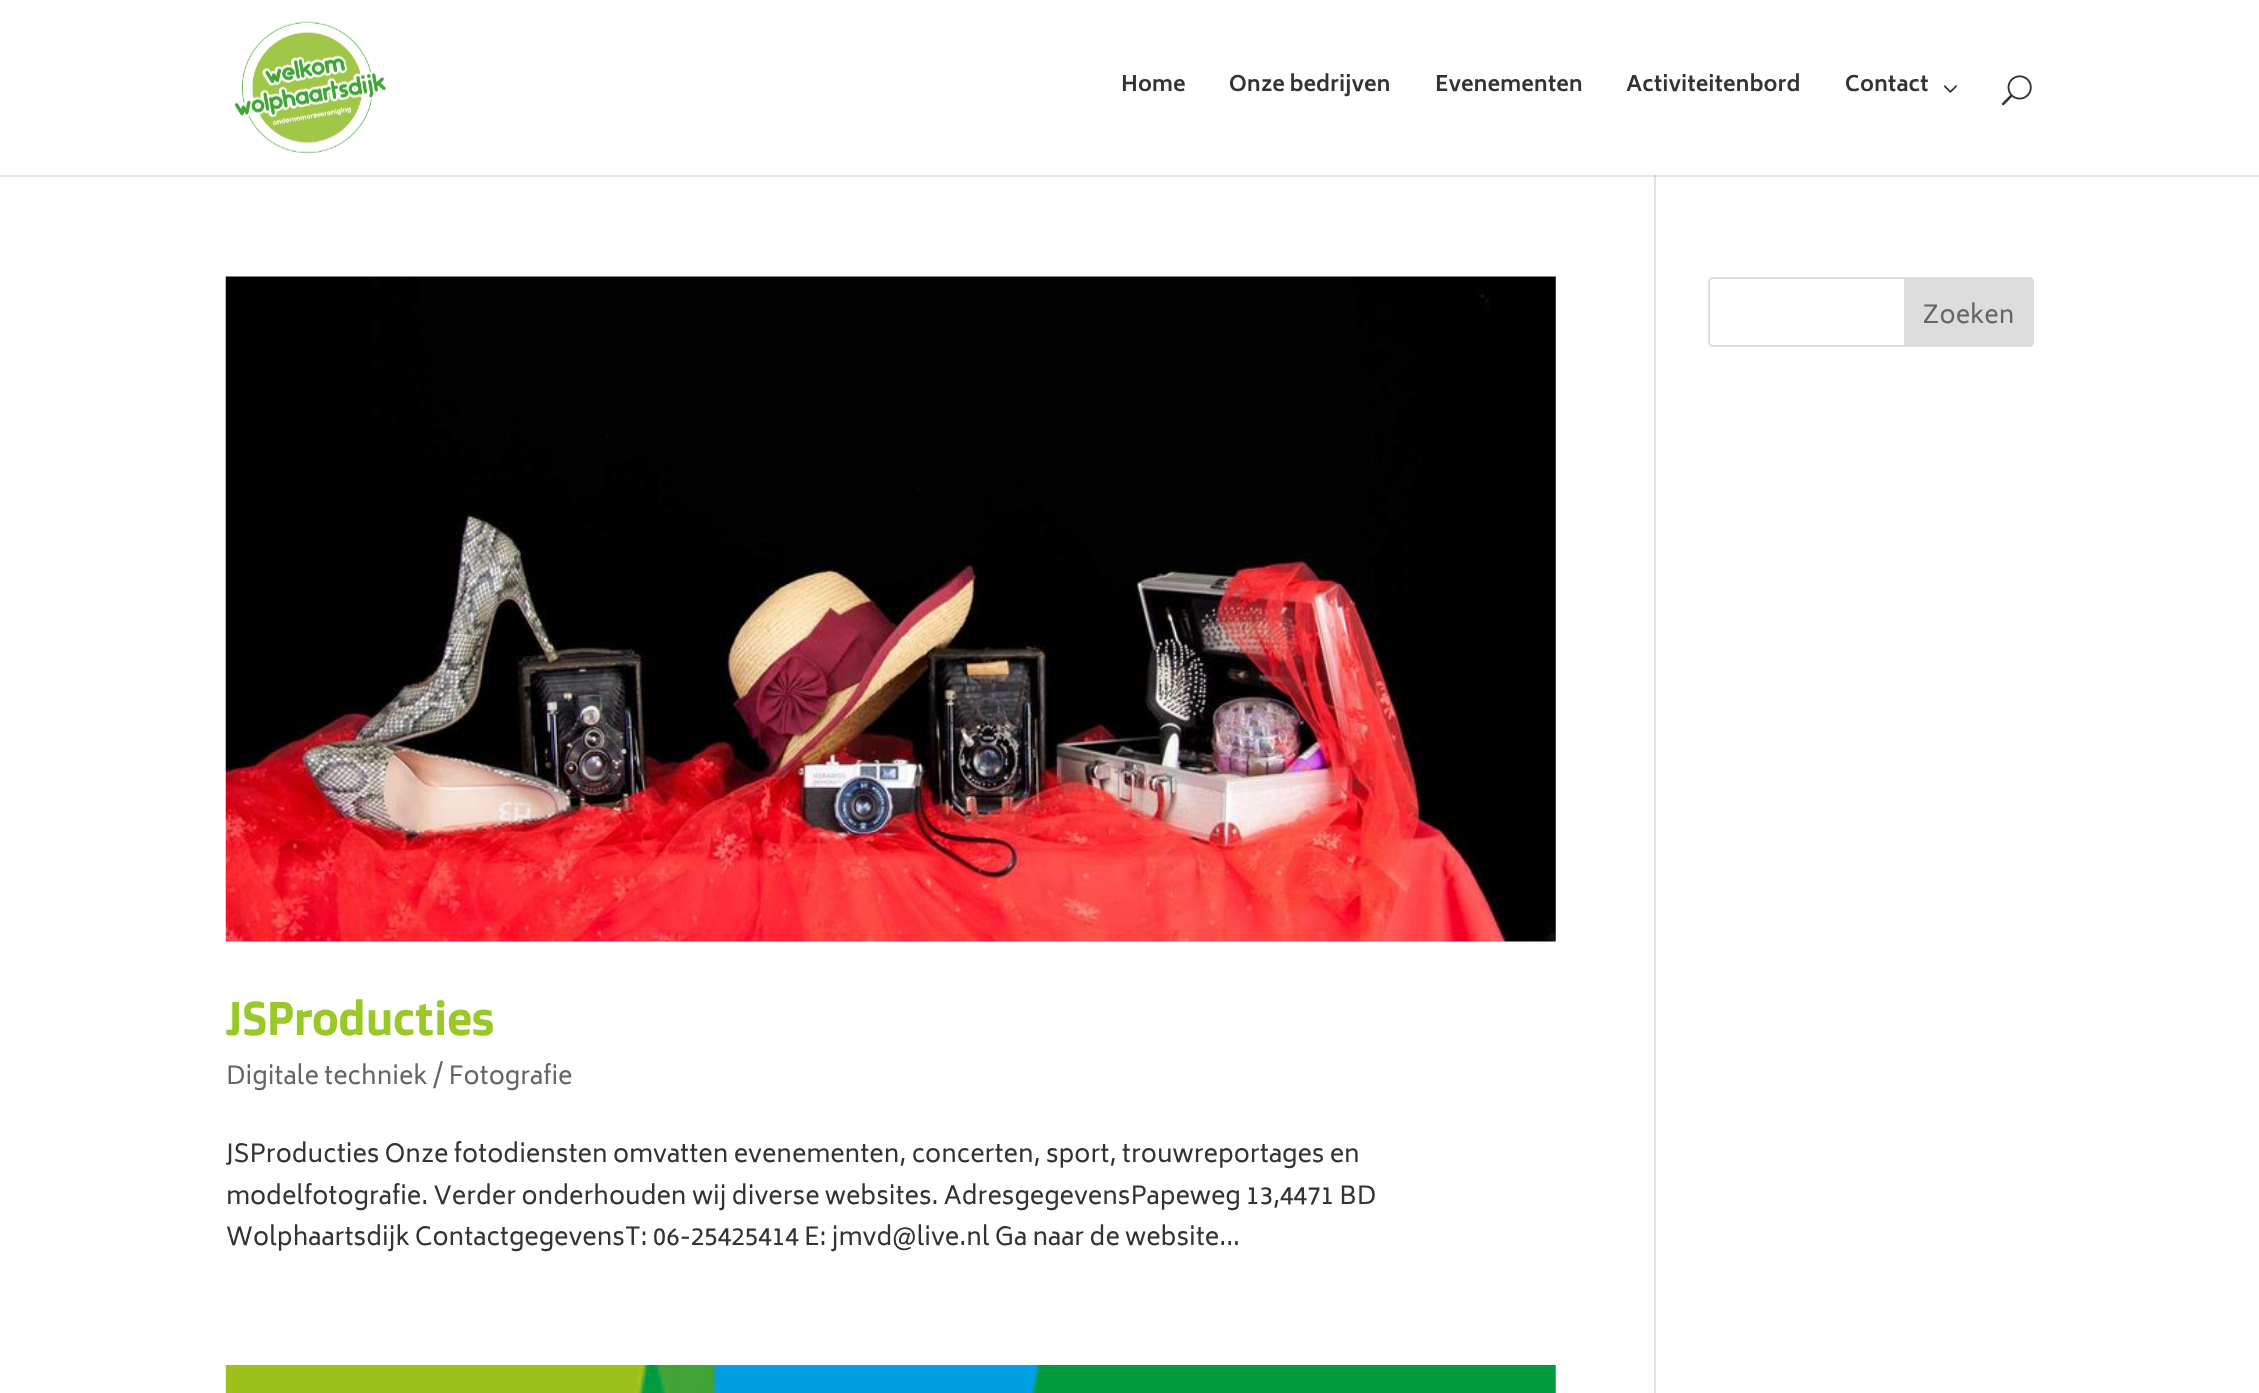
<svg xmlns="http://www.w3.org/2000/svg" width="2259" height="1393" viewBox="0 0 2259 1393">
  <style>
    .t1 { font: bold 21px Biryani; fill: #333; }
    .t2 { font: 24.5px Biryani; fill: #666; }
    .t3 { font: bold 45.5px Doppio One; fill: #98c926; }
    .t4 { font: 24.5px Biryani; fill: #333; }
  </style>
  <rect width="100%" height="100%" fill="#fff"/>
  <rect x="0" y="175" width="2259" height="2" fill="#e6e6e6"/>
  <image x="234" y="21" width="152" height="133" href="images/1.png"/>
  <text x="1121" y="91" class="t1">Home</text>
  <text x="1229" y="91" class="t1">Onze bedrijven</text>
  <text x="1435" y="91" class="t1">Evenementen</text>
  <text x="1626" y="91" class="t1">Activiteitenbord</text>
  <text x="1845" y="91" class="t1">Contact</text>
  <image x="1943" y="85" width="14" height="8" href="images/2.png"/>
  <image x="2001" y="75" width="31" height="31" href="images/3.png"/>
  <rect x="1654" y="175" width="2" height="1218" fill="#e2e2e2"/>
  <rect x="1654" y="175" width="2" height="2" fill="#cbcbcb"/>
  <rect x="1709" y="278" width="324" height="68" rx="4" fill="none" stroke="#ddd" stroke-width="2"/>
  <path d="M1905 278H2029C2031 278 2033 280 2033 282V342C2033 344 2031 346 2029 346H1905Z" fill="#ddd" stroke="#ddd" stroke-width="2"/>
  <text x="1922" y="323" class="t2">Zoeken</text>
  <image x="225" y="276" width="1331" height="666" href="images/4.png"/>
  <text x="226" y="1035" class="t3">JSProducties</text>
  <text x="226" y="1084" class="t2">Digitale techniek / Fotografie</text>
  <text x="226" y="1162" class="t4">JSProducties Onze fotodiensten omvatten evenementen, concerten, sport, trouwreportages en</text>
  <text x="226" y="1204" class="t4">modelfotografie. Verder onderhouden wij diverse websites. AdresgegevensPapeweg 13,4471 BD</text>
  <text x="226" y="1245" class="t4">Wolphaartsdijk ContactgegevensT: 06-25425414 E: jmvd@live.nl Ga naar de website...</text>
  <image x="225" y="1365" width="1331" height="28" href="images/5.png"/>
</svg>
